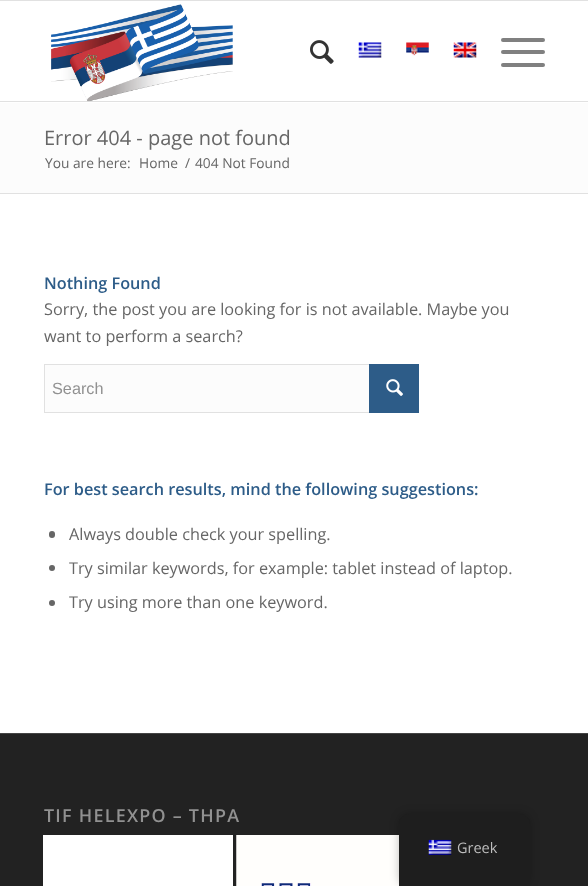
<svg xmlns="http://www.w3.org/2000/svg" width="588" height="886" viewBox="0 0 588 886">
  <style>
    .t1 { font: 20px Open Sans; fill: #666; }
    .t2 { font: 13.75px Open Sans; fill: #666; }
    .t3 { font: 600 16.25px Open Sans; fill: #2d5c88; }
    .t4 { font: 16.25px Open Sans; fill: #666; }
    .t5 { font: 16.25px Liberation Sans; fill: #919191; }
    .t6 { font: 600 17.9px Open Sans; letter-spacing: 1.25px; fill: #919191; }
    .t7 { font: 14.5px Open Sans; fill: #bdbdbd; }
  </style>
  <rect width="100%" height="100%" fill="#fff"/>
  <rect x="0" y="0" width="588" height="1" fill="#e1e1e1"/>
  <rect x="0" y="101" width="588" height="1" fill="#e1e1e1"/>
  <image x="51" y="4" width="182" height="98" href="images/1.png"/>
  <image x="310" y="40" width="24" height="24" href="images/2.png"/>
  <image x="358" y="42" width="24" height="16" href="images/3.png"/>
  <image x="406" y="42" width="23" height="14" href="images/4.png"/>
  <image x="453" y="42" width="24" height="16" href="images/5.png"/>
  <rect x="501" y="50" width="44" height="4" rx="2" fill="#808080"/>
  <rect x="501" y="38" width="44" height="4" rx="2" fill="#808080"/>
  <rect x="501" y="63" width="44" height="4" rx="2" fill="#808080"/>
  <rect x="0" y="103" width="588" height="90" fill="#fcfcfc"/>
  <text x="44" y="145" class="t1">Error 404 - page not found</text>
  <text x="45" y="168" class="t2">You are here:</text>
  <text x="139" y="168" class="t2">Home</text>
  <text x="185" y="168" class="t2">/</text>
  <text x="195" y="168" class="t2">404 Not Found</text>
  <rect x="0" y="193" width="588" height="1" fill="#e1e1e1"/>
  <text x="44" y="289" class="t3">Nothing Found</text>
  <text x="44" y="315" class="t4">Sorry, the post you are looking for is not available. Maybe you</text>
  <text x="44" y="342" class="t4">want to perform a search?</text>
  <rect x="45" y="365" width="324" height="47" fill="#fcfcfc"/>
  <rect x="44.5" y="364.5" width="374" height="48" fill="none" stroke="#e1e1e1"/>
  <text x="52" y="394" class="t5">Search</text>
  <rect x="369" y="364" width="50" height="49" fill="#2d5c88"/>
  <image x="386" y="379" width="17" height="17" href="images/6.png"/>
  <text x="44" y="495" class="t3">For best search results, mind the following suggestions:</text>
  <rect x="49" y="531" width="6" height="7" rx="3" fill="#666"/>
  <text x="69" y="540" class="t4">Always double check your spelling.</text>
  <circle cx="52" cy="568" r="3" fill="#666"/>
  <text x="69" y="574" class="t4">Try similar keywords, for example: tablet instead of laptop.</text>
  <circle cx="52" cy="603" r="3" fill="#666"/>
  <text x="69" y="608" class="t4">Try using more than one keyword.</text>
  <rect x="0" y="734" width="588" height="152" fill="#222"/>
  <rect x="0" y="733" width="588" height="1" fill="#444"/>
  <text x="44" y="822" class="t6">TIF HELEXPO – THPA</text>
  <rect x="43" y="835" width="190" height="51" fill="#fff"/>
  <image x="236" y="835" width="163" height="51" href="images/7.png"/>
  <rect x="399" y="814" width="131" height="72" rx="10" fill="#00000040" filter="blur(5px)"/>
  <path d="M409 814H520C525.5 814 530 818.5 530 824V886H399V824C399 818.5 403.5 814 409 814Z" fill="#1e1e1e"/>
  <image x="428" y="839" width="24" height="16" href="images/8.png"/>
  <text x="457" y="853" class="t7">Greek</text>
</svg>
